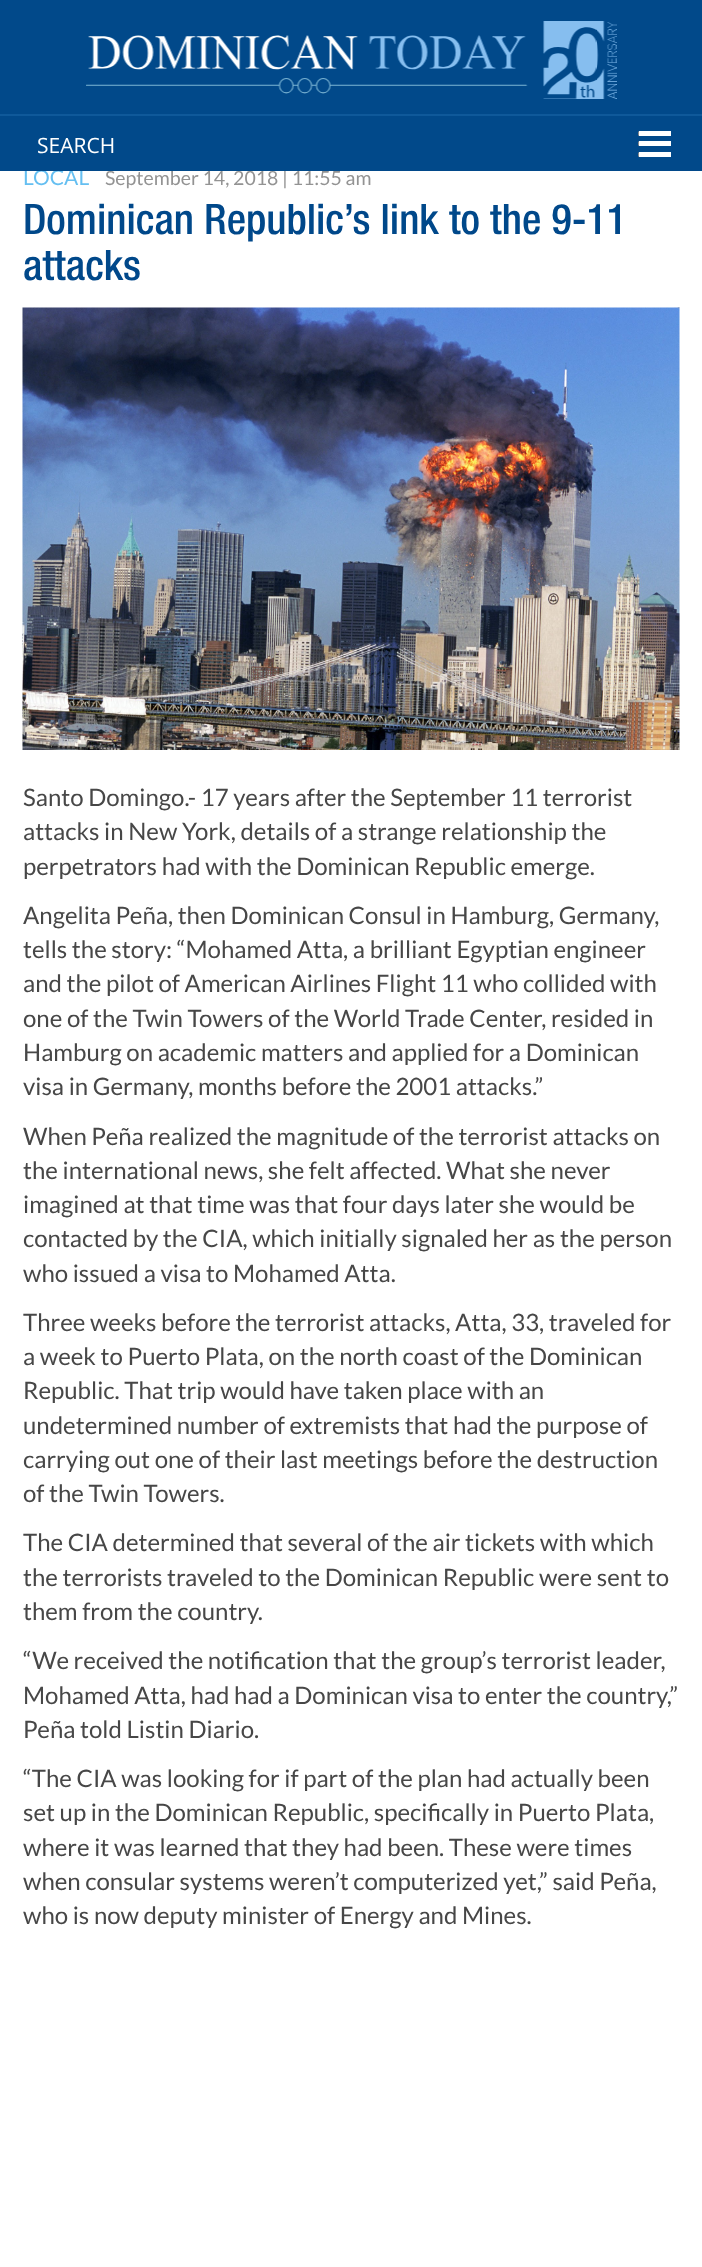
<svg xmlns="http://www.w3.org/2000/svg" width="702" height="2267" viewBox="0 0 702 2267">
  <style>
    .t1 { font: 21px Lato; fill: #65bff1; }
    .t2 { font: 19.5px Lato; fill: #939393; }
    .t3 { font: 21px Open Sans; fill: #fff; }
    .t4 { font: 500 42px Helvetica Neue; fill: #00488a; }
    .t5 { font: 24px Lato; fill: #474747; }
  </style>
  <rect width="100%" height="100%" fill="#fff"/>
  <text x="23" y="185" class="t1">LOCAL</text>
  <text x="105" y="185" class="t2">September 14, 2018 | 11:55 am</text>
  <rect x="0" y="0" width="702" height="171" fill="#01498a"/>
  <image x="86" y="21" width="531" height="78" href="images/1.png"/>
  <rect x="0" y="114" width="702" height="2" fill="#0f599a"/>
  <text x="37" y="153" class="t3">SEARCH</text>
  <rect x="638" y="131" width="33" height="5" rx="1.5" fill="#888"/>
  <rect x="639" y="131" width="32" height="5" fill="#fff"/>
  <rect x="638" y="141" width="33" height="5" rx="1.5" fill="#888"/>
  <rect x="639" y="141" width="32" height="5" fill="#fff"/>
  <rect x="638" y="152" width="33" height="5" rx="1.5" fill="#888"/>
  <rect x="639" y="152" width="32" height="5" fill="#fff"/>
  <text x="23" y="234" class="t4">Dominican Republic’s link to the 9-11</text>
  <text x="23" y="280" class="t4">attacks</text>
  <image x="22" y="307" width="658" height="443" href="images/2.png"/>
  <text x="23" y="806" class="t5">Santo Domingo.- 17 years after the September 11 terrorist</text>
  <text x="23" y="840" class="t5">attacks in New York, details of a strange relationship the</text>
  <text x="23" y="875" class="t5">perpetrators had with the Dominican Republic emerge.</text>
  <text x="23" y="924" class="t5">Angelita Peña, then Dominican Consul in Hamburg, Germany,</text>
  <text x="23" y="958" class="t5">tells the story: “Mohamed Atta, a brilliant Egyptian engineer</text>
  <text x="23" y="992" class="t5">and the pilot of American Airlines Flight 11 who collided with</text>
  <text x="23" y="1027" class="t5">one of the Twin Towers of the World Trade Center, resided in</text>
  <text x="23" y="1061" class="t5">Hamburg on academic matters and applied for a Dominican</text>
  <text x="23" y="1095" class="t5">visa in Germany, months before the 2001 attacks.”</text>
  <text x="23" y="1145" class="t5">When Peña realized the magnitude of the terrorist attacks on</text>
  <text x="23" y="1179" class="t5">the international news, she felt affected. What she never</text>
  <text x="23" y="1213" class="t5">imagined at that time was that four days later she would be</text>
  <text x="23" y="1247" class="t5">contacted by the CIA, which initially signaled her as the person</text>
  <text x="23" y="1282" class="t5">who issued a visa to Mohamed Atta.</text>
  <text x="23" y="1331" class="t5">Three weeks before the terrorist attacks, Atta, 33, traveled for</text>
  <text x="23" y="1365" class="t5">a week to Puerto Plata, on the north coast of the Dominican</text>
  <text x="23" y="1399" class="t5">Republic. That trip would have taken place with an</text>
  <text x="23" y="1434" class="t5">undetermined number of extremists that had the purpose of</text>
  <text x="23" y="1468" class="t5">carrying out one of their last meetings before the destruction</text>
  <text x="23" y="1502" class="t5">of the Twin Towers.</text>
  <text x="23" y="1551" class="t5">The CIA determined that several of the air tickets with which</text>
  <text x="23" y="1586" class="t5">the terrorists traveled to the Dominican Republic were sent to</text>
  <text x="23" y="1620" class="t5">them from the country.</text>
  <text x="23" y="1669" class="t5">“We received the notification that the group’s terrorist leader,</text>
  <text x="23" y="1704" class="t5">Mohamed Atta, had had a Dominican visa to enter the country,”</text>
  <text x="23" y="1738" class="t5">Peña told Listin Diario.</text>
  <text x="23" y="1787" class="t5">“The CIA was looking for if part of the plan had actually been</text>
  <text x="23" y="1821" class="t5">set up in the Dominican Republic, specifically in Puerto Plata,</text>
  <text x="23" y="1856" class="t5">where it was learned that they had been. These were times</text>
  <text x="23" y="1890" class="t5">when consular systems weren’t computerized yet,” said Peña,</text>
  <text x="23" y="1924" class="t5">who is now deputy minister of Energy and Mines.</text>
</svg>
